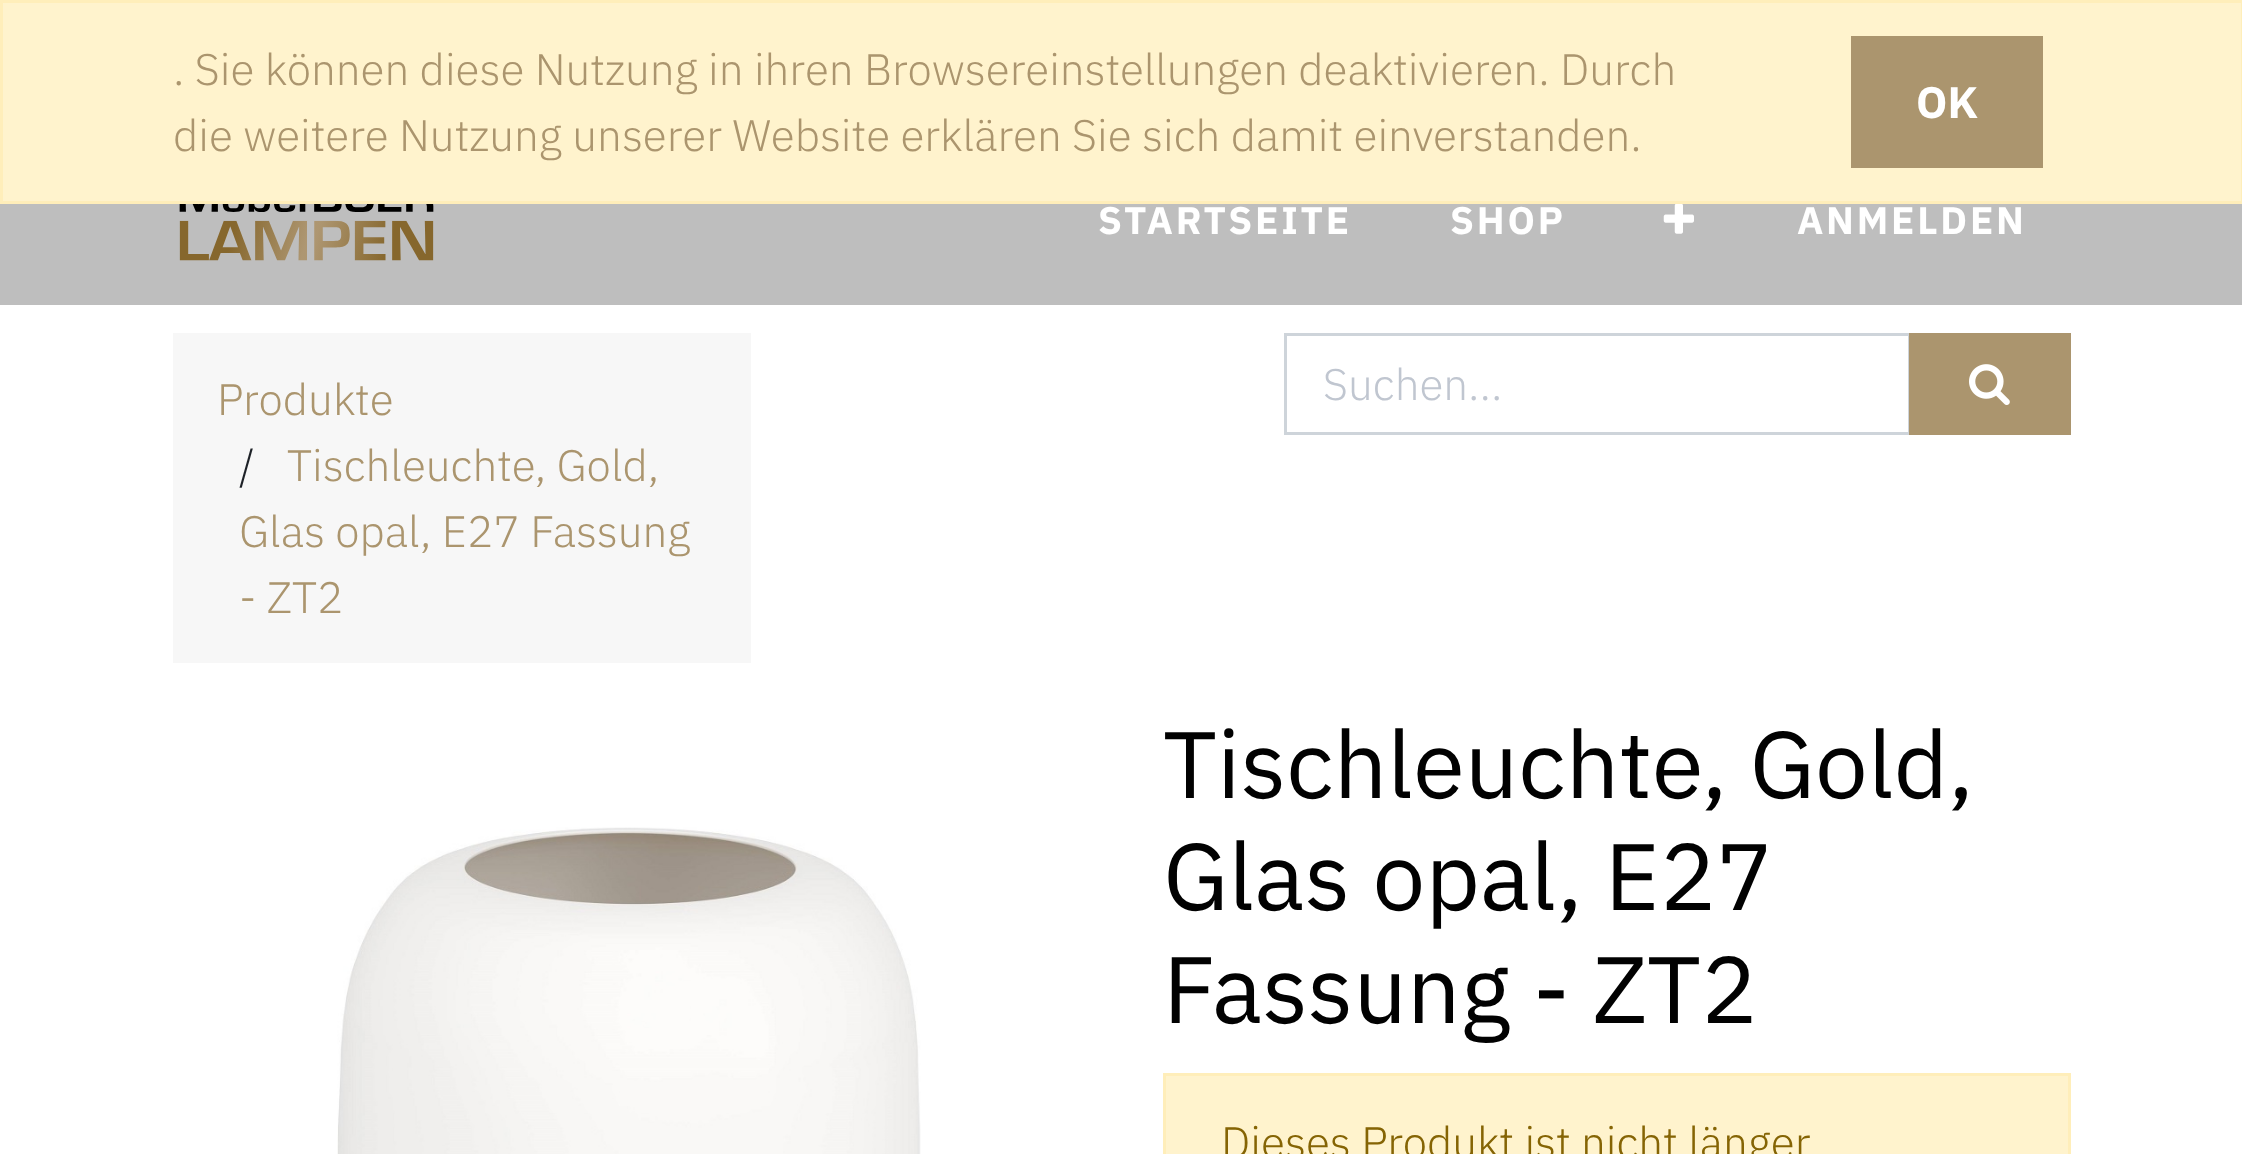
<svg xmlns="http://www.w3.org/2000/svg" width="2242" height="1154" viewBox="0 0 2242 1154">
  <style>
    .t1 { font: 300 44px IBM Plex Sans; fill: #ab956e; }
    .t2 { font: bold 44px IBM Plex Sans; fill: #fff; }
    .t3 { font: bold 38.5px IBM Plex Sans; letter-spacing: 2.75px; fill: #fff; }
    .t4 { font: 300 44px IBM Plex Sans; fill: #1d2127; }
    .t5 { font: 300 44px IBM Plex Sans; fill: #c0c6d0; }
    .t6 { font: 94.25px IBM Plex Sans; fill: #010101; }
    .t7 { font: 300 44px IBM Plex Sans; fill: #856404; }
  </style>
  <rect width="100%" height="100%" fill="#fff"/>
  <rect x="1.5" y="1.5" width="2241" height="201" fill="#fff3cd" stroke="#ffeeba" stroke-width="3"/>
  <text x="173" y="85" class="t1">. Sie können diese Nutzung in ihren Browsereinstellungen deaktivieren. Durch</text>
  <text x="173" y="151" class="t1">die weitere Nutzung unserer Website erklären Sie sich damit einverstanden.</text>
  <rect x="1851" y="36" width="192" height="132" fill="#ab956e"/>
  <text x="1916" y="118" class="t2">OK</text>
  <rect x="0" y="204" width="2242" height="101" fill="#bebebe"/>
  <image x="179" y="204" width="255" height="57" href="images/1.png"/>
  <text x="1098" y="234" class="t3">STARTSEITE</text>
  <text x="1450" y="234" class="t3">SHOP</text>
  <image x="1663" y="204" width="31" height="30" href="images/2.png"/>
  <text x="1797" y="234" class="t3">ANMELDEN</text>
  <rect x="173" y="333" width="578" height="330" fill="#f7f7f7"/>
  <text x="217" y="415" class="t1">Produkte</text>
  <text x="239" y="481" class="t4">/</text>
  <text x="287" y="481" class="t1">Tischleuchte, Gold,</text>
  <text x="239" y="547" class="t1">Glas opal, E27 Fassung</text>
  <text x="239" y="613" class="t1">- ZT2</text>
  <rect x="1285.5" y="334.5" width="624" height="99" fill="none" stroke="#ced4da" stroke-width="3"/>
  <text x="1323" y="400" class="t5">Suchen...</text>
  <rect x="1909" y="333" width="162" height="102" fill="#ab956e"/>
  <image x="1969" y="364" width="41" height="41" href="images/3.png"/>
  <image x="337" y="827" width="584" height="327" href="images/4.png"/>
  <text x="1163" y="798" class="t6">Tischleuchte, Gold,</text>
  <text x="1163" y="910" class="t6">Glas opal, E27</text>
  <text x="1163" y="1023" class="t6">Fassung - ZT2</text>
  <rect x="1164.5" y="1074.5" width="905" height="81" fill="#fff3cd" stroke="#ffeeba" stroke-width="3"/>
  <text x="1221" y="1158" class="t7">Dieses Produkt ist nicht länger</text>
</svg>
